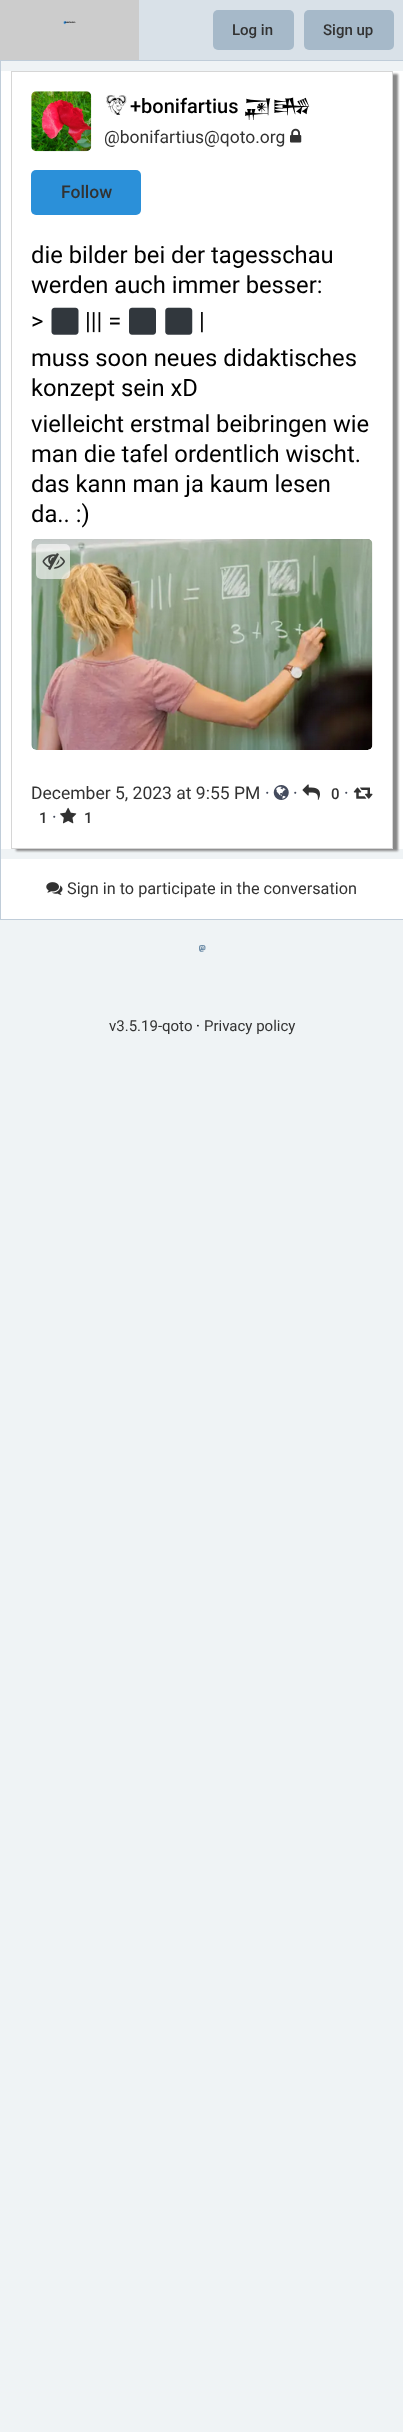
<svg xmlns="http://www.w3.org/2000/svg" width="403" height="2432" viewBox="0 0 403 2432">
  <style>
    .t1 { font: 500 15px Roboto; fill: #323232; }
    .t2 { font: 500 20px Roboto; fill: #000; }
    .t3 { font: 20px Noto Sans Cuneiform; fill: #000; }
    .t4 { font: 17.5px Roboto; fill: #323232; }
    .t5 { font: 500 17.5px Roboto; fill: #323232; }
    .t6 { font: 23.75px Roboto; fill: #000; }
    .t7 { font: 17.5px Roboto; fill: #444b5d; }
    .t8 { font: 16.25px Roboto; fill: #323232; }
    .t9 { font: 15px Roboto; fill: #323232; }
    .t10 { font: 15px Roboto; fill: #000; }
  </style>
  <rect width="100%" height="100%" fill="#eff3f5"/>
  <rect x="139" y="0" width="264" height="60" fill="#d9e1e8"/>
  <rect x="0" y="0" width="139" height="60" fill="#ccc"/>
  <image x="63" y="21" width="13" height="4" href="images/1.png"/>
  <rect x="213" y="10" width="81" height="40" rx="5" fill="#a6b9c9"/>
  <text x="232" y="35" class="t1">Log in</text>
  <rect x="304" y="10" width="90" height="40" rx="5" fill="#a6b9c9"/>
  <text x="323" y="35" class="t1">Sign up</text>
  <rect x="0.5" y="60.5" width="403" height="859" fill="none" stroke="#c0cdd9"/>
  <rect x="1" y="71" width="402" height="778" fill="#fff"/>
  <rect x="16" y="74" width="382" height="777" fill="#888" filter="blur(1px)"/>
  <rect x="14" y="72" width="378" height="776" fill="#fff"/>
  <rect x="11.5" y="71.5" width="381" height="777" fill="none" stroke="#d6d6d6"/>
  <image x="31" y="91" width="61" height="61" href="images/2.png"/>
  <image x="106" y="95" width="21" height="20" href="images/3.png"/>
  <text x="130" y="113" class="t2">+bonifartius</text>
  <text x="243" y="113" class="t3">𒂼𒄄</text>
  <text x="104" y="143" class="t4">@bonifartius@qoto.org</text>
  <image x="290" y="128" width="12" height="15" href="images/4.png"/>
  <rect x="31" y="170" width="110" height="45" rx="5" fill="#2b90d9"/>
  <text x="61" y="198" class="t5">Follow</text>
  <text x="31" y="263" class="t6">die bilder bei der tagesschau</text>
  <text x="31" y="293" class="t6">werden auch immer besser:</text>
  <text x="31" y="329" class="t6">&gt;</text>
  <image x="51" y="307" width="28" height="28" href="images/5.png"/>
  <text x="85" y="329" class="t6">||| =</text>
  <image x="129" y="307" width="27" height="28" href="images/6.png"/>
  <image x="165" y="307" width="28" height="28" href="images/7.png"/>
  <text x="199" y="329" class="t6">|</text>
  <text x="31" y="366" class="t6">muss soon neues didaktisches</text>
  <text x="31" y="396" class="t6">konzept sein xD</text>
  <text x="31" y="432" class="t6">vielleicht erstmal beibringen wie</text>
  <text x="31" y="462" class="t6">man die tafel ordentlich wischt.</text>
  <text x="31" y="492" class="t6">das kann man ja kaum lesen</text>
  <text x="31" y="522" class="t6">da.. :)</text>
  <image x="31" y="539" width="342" height="211" href="images/8.png"/>
  <rect x="36" y="544" width="34" height="35" rx="5" fill="#ffffff99"/>
  <image x="42" y="553" width="23" height="17" href="images/9.png"/>
  <text x="31" y="799" class="t4">December 5, 2023 at 9:55 PM</text>
  <text x="265" y="799" class="t7">·</text>
  <image x="273" y="785" width="16" height="15" href="images/10.png"/>
  <text x="293" y="799" class="t7">·</text>
  <image x="302" y="784" width="18" height="16" href="images/11.png"/>
  <text x="331" y="799" class="t1">0</text>
  <text x="344" y="799" class="t7">·</text>
  <image x="353" y="787" width="20" height="12" href="images/12.png"/>
  <text x="39" y="823" class="t1">1</text>
  <text x="52" y="823" class="t7">·</text>
  <image x="60" y="807" width="17" height="17" href="images/13.png"/>
  <text x="84" y="823" class="t1">1</text>
  <rect x="1" y="859" width="402" height="60" fill="#fff"/>
  <image x="46" y="882" width="17" height="13" href="images/14.png"/>
  <text x="67" y="894" class="t8">Sign in to participate in the conversation</text>
  <image x="199" y="945" width="7" height="7" href="images/15.png"/>
  <text x="109" y="1031" class="t9">v3.5.19-qoto</text>
  <text x="196" y="1031" class="t10">·</text>
  <text x="204" y="1031" class="t9">Privacy policy</text>
</svg>
